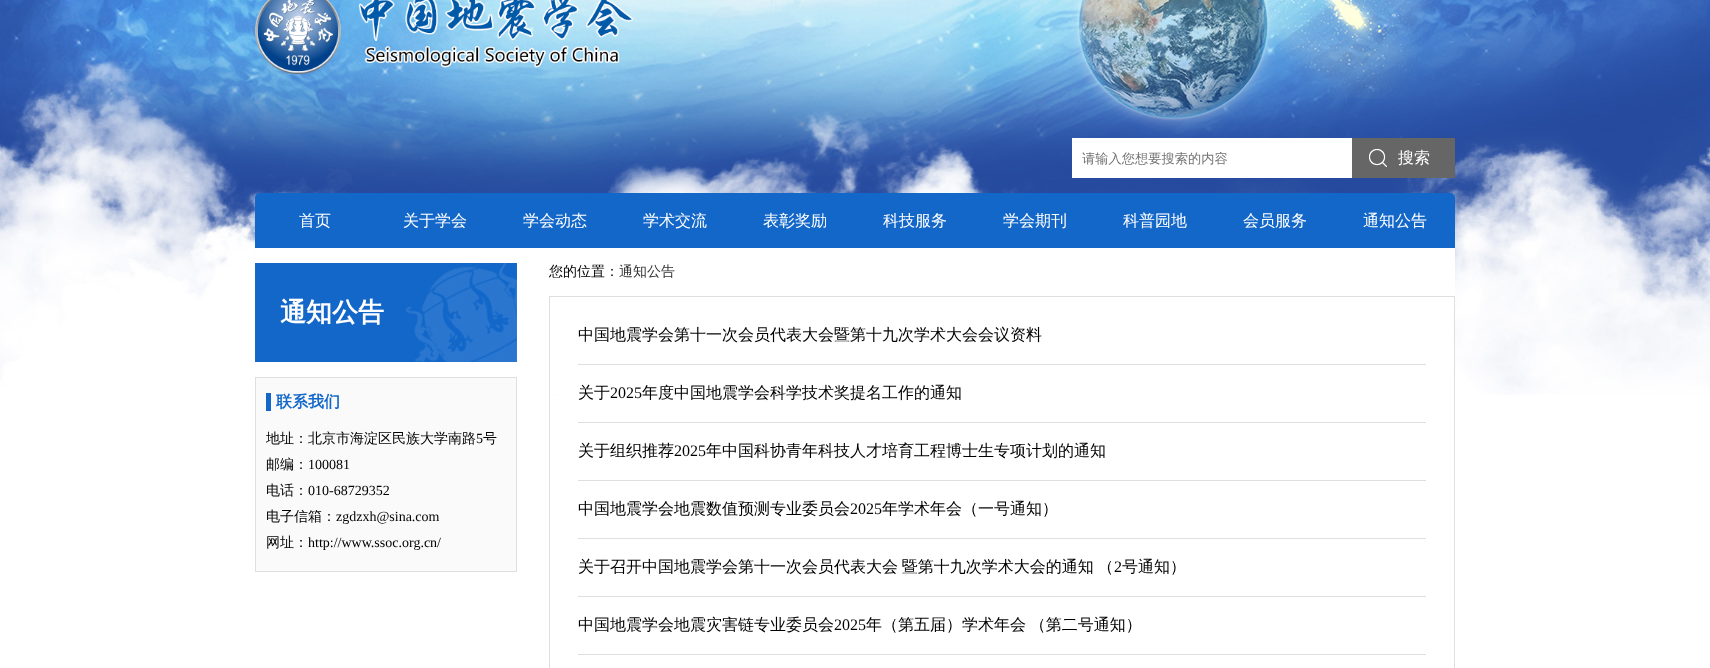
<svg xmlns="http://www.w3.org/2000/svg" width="1710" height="668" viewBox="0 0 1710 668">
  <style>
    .t1 { font: 500 13.25px WenQuanYi Zen Hei; fill: #757575; }
    .t2 { font: 500 16px WenQuanYi Zen Hei; fill: #fff; }
    .t3 { font: bold 26px WenQuanYi Zen Hei; fill: #fff; }
    .t4 { font: bold 16px WenQuanYi Zen Hei; fill: #1267c9; }
    .t5 { font: 500 14px WenQuanYi Zen Hei; fill: #000; }
    .t6 { font: 14px Liberation Serif; fill: #000; }
    .t7 { font: 500 14px WenQuanYi Zen Hei; fill: #333; }
    .t8 { font: 500 16px WenQuanYi Zen Hei; fill: #000; }
    .t9 { font: 16px Liberation Serif; fill: #000; }
  </style>
  <rect width="100%" height="100%" fill="#fff"/>
  <image x="0" y="0" width="1710" height="395" href="images/1.png"/>
  <image x="255" y="0" width="378" height="74" href="images/2.png"/>
  <rect x="1072" y="138" width="280" height="40" fill="#fff"/>
  <text x="1082" y="163" class="t1">请输入您想要搜索的内容</text>
  <rect x="1352" y="138" width="103" height="40" fill="#666"/>
  <image x="1369" y="149" width="18" height="18" href="images/3.png"/>
  <text x="1398" y="163" class="t2">搜索</text>
  <path d="M260 193H1450C1453 193 1455 195 1455 198V248H255V198C255 195 257 193 260 193Z" fill="#1267c9"/>
  <text x="299" y="226" class="t2">首页</text>
  <text x="403" y="226" class="t2">关于学会</text>
  <text x="523" y="226" class="t2">学会动态</text>
  <text x="643" y="226" class="t2">学术交流</text>
  <text x="763" y="226" class="t2">表彰奖励</text>
  <text x="883" y="226" class="t2">科技服务</text>
  <text x="1003" y="226" class="t2">学会期刊</text>
  <text x="1123" y="226" class="t2">科普园地</text>
  <text x="1243" y="226" class="t2">会员服务</text>
  <text x="1363" y="226" class="t2">通知公告</text>
  <rect x="256" y="248" width="1199" height="146" fill="#fff"/>
  <image x="255" y="263" width="262" height="99" href="images/4.png"/>
  <text x="280" y="321" class="t3">通知公告</text>
  <rect x="255.5" y="377.5" width="261" height="194" fill="#fafafa" stroke="#dfdfdf"/>
  <rect x="266" y="393" width="5" height="18" fill="#1267c9"/>
  <text x="276" y="407" class="t4">联系我们</text>
  <text x="266" y="443" class="t5">地址：北京市海淀区民族大学南路</text>
  <text x="476" y="443" class="t6">5</text>
  <text x="483" y="443" class="t5">号</text>
  <text x="266" y="469" class="t5">邮编：</text>
  <text x="308" y="469" class="t6">100081</text>
  <text x="266" y="495" class="t5">电话：</text>
  <text x="308" y="495" class="t6">010-68729352</text>
  <text x="266" y="521" class="t5">电子信箱：</text>
  <text x="336" y="521" class="t6">zgdzxh@sina.com</text>
  <text x="266" y="547" class="t5">网址：</text>
  <text x="308" y="547" class="t6">http://www.ssoc.org.cn/</text>
  <text x="549" y="276" class="t5">您的位置：</text>
  <text x="619" y="276" class="t7">通知公告</text>
  <rect x="549.5" y="296.5" width="905" height="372" fill="none" stroke="#dfdfdf"/>
  <rect x="578" y="364" width="848" height="1" fill="#dfdfdf"/>
  <text x="578" y="340" class="t8">中国地震学会第十一次会员代表大会暨第十九次学术大会会议资料</text>
  <rect x="578" y="422" width="848" height="1" fill="#dfdfdf"/>
  <text x="578" y="398" class="t8">关于</text>
  <text x="610" y="398" class="t9">2025</text>
  <text x="642" y="398" class="t8">年度中国地震学会科学技术奖提名工作的通知</text>
  <rect x="578" y="480" width="848" height="1" fill="#dfdfdf"/>
  <text x="578" y="456" class="t8">关于组织推荐</text>
  <text x="674" y="456" class="t9">2025</text>
  <text x="706" y="456" class="t8">年中国科协青年科技人才培育工程博士生专项计划的通知</text>
  <rect x="578" y="538" width="848" height="1" fill="#dfdfdf"/>
  <text x="578" y="514" class="t8">中国地震学会地震数值预测专业委员会</text>
  <text x="850" y="514" class="t9">2025</text>
  <text x="882" y="514" class="t8">年学术年会（一号通知）</text>
  <rect x="578" y="596" width="848" height="1" fill="#dfdfdf"/>
  <text x="578" y="572" word-spacing="-1" class="t8">关于召开中国地震学会第十一次会员代表大会 暨第十九次学术大会的通知 （</text>
  <text x="1114" y="572" class="t9">2</text>
  <text x="1122" y="572" class="t8">号通知）</text>
  <rect x="578" y="654" width="848" height="1" fill="#dfdfdf"/>
  <text x="578" y="630" class="t8">中国地震学会地震灾害链专业委员会</text>
  <text x="834" y="630" class="t9">2025</text>
  <text x="866" y="630" word-spacing="-1" class="t8">年（第五届）学术年会 （第二号通知）</text>
</svg>
